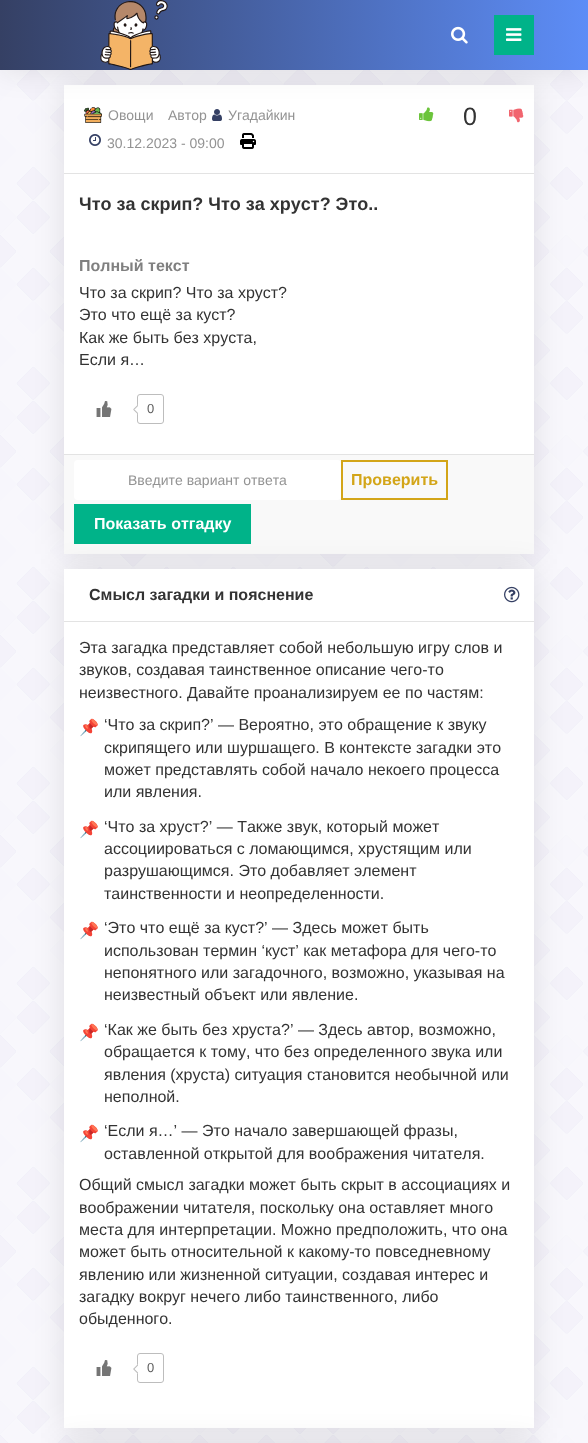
<svg xmlns="http://www.w3.org/2000/svg" width="588" height="1443" viewBox="0 0 588 1443">
  <style>*{font-kerning:none!important;font-variant-ligatures:none!important}</style>
  <style>
    .t1 { font: 14px Liberation Sans; fill: #939393; }
    .t2 { font: 25px Liberation Sans; fill: #333; }
    .t3 { font: bold 18px Liberation Sans; fill: #333; }
    .t4 { font: bold 16px Liberation Sans; fill: #808080; }
    .t5 { font: 16px Liberation Sans; fill: #333; }
    .t6 { font: 13px Liberation Sans; fill: #616161; }
    .t7 { font: bold 16px Liberation Sans; fill: #d3a518; }
    .t8 { font: bold 16px Liberation Sans; fill: #fff; }
    .t9 { font: bold 16px Liberation Sans; fill: #333; }
    .t10 { font: 16px Noto Color Emoji; fill: #333; }
  </style>
  <defs>
    <linearGradient id="g1" gradientUnits="userSpaceOnUse" x1="0" y1="35" x2="588" y2="35"><stop offset="0" stop-color="#354064"/><stop offset="1" stop-color="#5d8df7"/></linearGradient>
  </defs>
  <rect width="100%" height="100%" fill="#fff"/>
  <image x="0" y="70" width="588" height="1373" href="images/1.png"/>
  <rect x="64" y="85" width="470" height="469" fill="#0000001a" filter="blur(15px)"/>
  <rect x="64" y="85" width="470" height="369" fill="#fff"/>
  <image x="84" y="107" width="18" height="16" href="images/5.png"/>
  <image x="212" y="109" width="10" height="12" href="images/6.png"/>
  <image x="419" y="107" width="15" height="15" href="images/9.png"/>
  <image x="509" y="108" width="15" height="15" href="images/10.png"/>
  <rect x="0" y="0" width="588" height="70" fill="#0000001a" filter="blur(15px)"/>
  <rect x="0" y="0" width="588" height="70" fill="url(#g1)"/>
  <image x="100" y="0" width="68" height="70" href="images/2.png"/>
  <image x="451" y="26" width="17" height="18" href="images/3.png"/>
  <rect x="494" y="15" width="40" height="40" fill="#00b389"/>
  <image x="506" y="28" width="16" height="13" href="images/4.png"/>
  <rect x="64" y="173" width="470" height="1" fill="#e3e3e3"/>
  <text x="108" y="120" class="t1">Овощи</text>
  <text x="168" y="120" class="t1">Автор</text>
  <text x="228" y="120" class="t1">Угадайкин</text>
  <image x="89" y="134" width="12" height="12" href="images/7.png"/>
  <text x="107" y="148" class="t1">30.12.2023 - 09:00</text>
  <image x="240" y="133" width="16" height="16" href="images/8.png"/>
  <text x="463" y="125" class="t2">0</text>
  <text x="79" y="210" class="t3">Что за скрип? Что за хруст? Это..</text>
  <text x="79" y="271" class="t4">Полный текст</text>
  <text x="79" y="298" class="t5">Что за скрип? Что за хруст?</text>
  <text x="79" y="320" class="t5">Это что ещё за куст?</text>
  <text x="79" y="343" class="t5">Как же быть без хруста,</text>
  <text x="79" y="365" class="t5">Если я…</text>
  <image x="96" y="401" width="16" height="16" href="images/11.png"/>
  <rect x="137.5" y="394.5" width="26" height="29" rx="2.5" fill="none" stroke="#bdbdbd"/>
  <path d="M138 404.5L143 409.5L138 414.5L133 409.5Z" fill="#fff"/>
  <path d="M138 414.5L133 409.5H134.5L138 413Z" fill="#bdbdbd"/>
  <path d="M133 409.5L138 404.5V406L134.5 409.5Z" fill="#bdbdbd"/>
  <text x="147" y="413" class="t6">0</text>
  <rect x="64" y="455" width="470" height="99" fill="#f9f9f9"/>
  <rect x="64" y="454" width="470" height="1" fill="#e3e3e3"/>
  <rect x="74" y="460" width="267" height="40" rx="4" fill="#fff"/>
  <text x="128" y="485" class="t1">Введите вариант ответа</text>
  <rect x="342" y="461" width="105" height="38" fill="none" stroke="#d3a518" stroke-width="2"/>
  <text x="351" y="485" class="t7">Проверить</text>
  <rect x="64" y="569" width="470" height="859" fill="#0000001a" filter="blur(15px)"/>
  <rect x="74" y="504" width="177" height="40" fill="#00b389"/>
  <text x="94" y="529" class="t8">Показать отгадку</text>
  <rect x="64" y="569" width="470" height="859" fill="#fff"/>
  <rect x="64" y="621" width="470" height="1" fill="#e3e3e3"/>
  <text x="89" y="600" class="t9">Смысл загадки и пояснение</text>
  <image x="504" y="586" width="16" height="17" href="images/12.png"/>
  <text x="79" y="653" class="t5">Эта загадка представляет собой небольшую игру слов и</text>
  <text x="79" y="675" class="t5">звуков, создавая таинственное описание чего-то</text>
  <text x="79" y="698" class="t5">неизвестного. Давайте проанализируем ее по частям:</text>
  <text x="79" y="733" class="t10">📌</text>
  <text x="104" y="730" class="t5">‘Что за скрип?’ — Вероятно, это обращение к звуку</text>
  <text x="104" y="753" class="t5">скрипящего или шуршащего. В контексте загадки это</text>
  <text x="104" y="775" class="t5">может представлять собой начало некоего процесса</text>
  <text x="104" y="797" class="t5">или явления.</text>
  <text x="79" y="835" class="t10">📌</text>
  <text x="104" y="832" class="t5">‘Что за хруст?’ — Также звук, который может</text>
  <text x="104" y="854" class="t5">ассоциироваться с ломающимся, хрустящим или</text>
  <text x="104" y="876" class="t5">разрушающимся. Это добавляет элемент</text>
  <text x="104" y="899" class="t5">таинственности и неопределенности.</text>
  <text x="79" y="936" class="t10">📌</text>
  <text x="104" y="933" class="t5">‘Это что ещё за куст?’ — Здесь может быть</text>
  <text x="104" y="956" class="t5">использован термин ‘куст’ как метафора для чего-то</text>
  <text x="104" y="978" class="t5">непонятного или загадочного, возможно, указывая на</text>
  <text x="104" y="1000" class="t5">неизвестный объект или явление.</text>
  <text x="79" y="1038" class="t10">📌</text>
  <text x="104" y="1035" class="t5">‘Как же быть без хруста?’ — Здесь автор, возможно,</text>
  <text x="104" y="1057" class="t5">обращается к тому, что без определенного</text>
  <text x="431" y="1057" class="t5">звука или</text>
  <text x="104" y="1080" class="t5">явления (хруста) ситуация становится необычной или</text>
  <text x="104" y="1102" class="t5">неполной.</text>
  <text x="79" y="1139" class="t10">📌</text>
  <text x="104" y="1136" class="t5">‘Если я…’ — Это начало завершающей фразы,</text>
  <text x="104" y="1159" class="t5">оставленной открытой для воображения читателя.</text>
  <text x="79" y="1190" class="t5">Общий смысл загадки может быть скрыт в ассоциациях и</text>
  <text x="79" y="1213" class="t5">воображении читателя, поскольку она оставляет много</text>
  <text x="79" y="1235" class="t5">места для интерпретации. Можно предположить, что она</text>
  <text x="79" y="1257" class="t5">может быть относительной к какому-то повседневному</text>
  <text x="79" y="1280" class="t5">явлению или жизненной ситуации, создавая интерес и</text>
  <text x="79" y="1302" class="t5">загадку вокруг нечего либо таинственного, либо</text>
  <text x="79" y="1324" class="t5">обыденного.</text>
  <image x="96" y="1360" width="16" height="16" href="images/11.png"/>
  <rect x="137.5" y="1353.5" width="26" height="29" rx="2.5" fill="none" stroke="#bdbdbd"/>
  <path d="M138 1364L143 1369L138 1374L133 1369Z" fill="#fff"/>
  <path d="M138 1374L133 1369H134.5L138 1372.5ZM133 1369L138 1364V1365.5L134.5 1369Z" fill="#bdbdbd"/>
  <text x="147" y="1372" class="t6">0</text>
  <rect x="64" y="1443" width="470" height="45" fill="#0000001a" filter="blur(15px)"/>
</svg>
